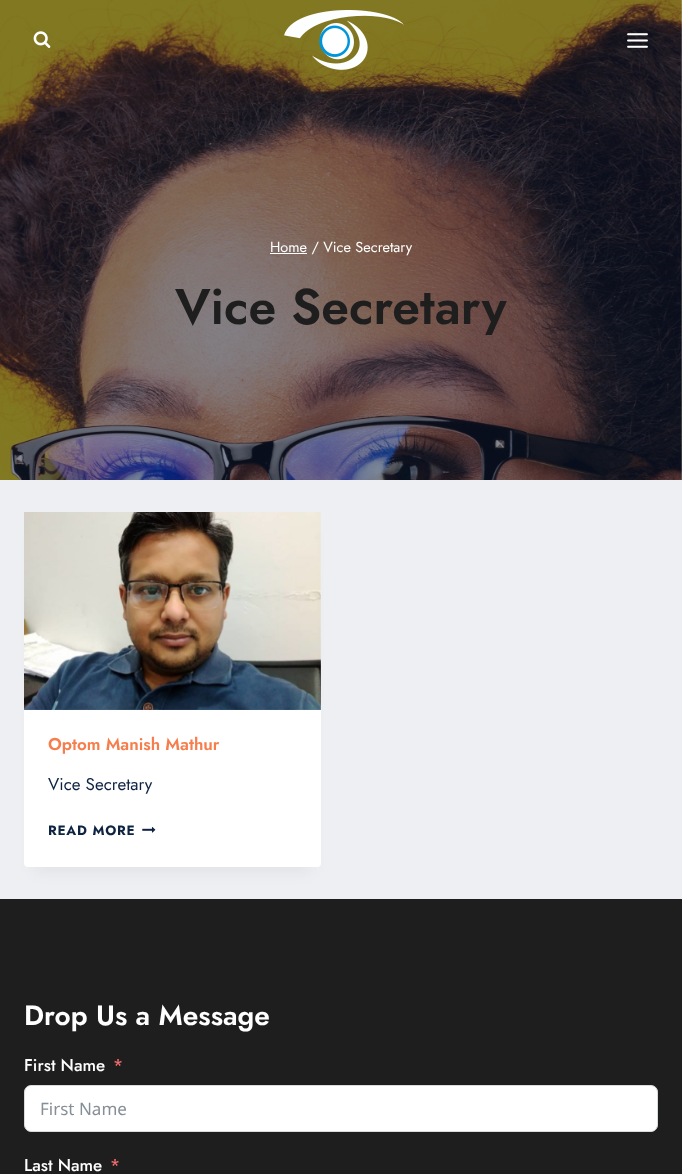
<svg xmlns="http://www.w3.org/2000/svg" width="682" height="1174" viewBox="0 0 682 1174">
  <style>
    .t1 { font: 14.5px Jost; fill: #fff; }
    .t2 { font: 600 50px Jost; fill: #1e1e1e; }
    .t3 { font: 600 17px Jost; fill: #f67d4c; }
    .t4 { font: 17px Jost; fill: #0e2341; }
    .t5 { font: bold 13.5px Jost; letter-spacing: 0.75px; fill: #0e2341; }
    .t6 { font: 600 28px Jost; fill: #fff; }
    .t7 { font: 500 17px Jost; fill: #fff; }
    .t8 { font: 500 17px Jost; fill: #f56c6c; }
    .t9 { font: 17px Noto Sans; fill: #868e96; }
  </style>
  <rect width="100%" height="100%" fill="#edeff3"/>
  <image x="0" y="0" width="682" height="480" href="images/4.png"/>
  <image x="33" y="31" width="18" height="17" href="images/1.png"/>
  <image x="284" y="10" width="120" height="60" href="images/2.png"/>
  <image x="627" y="33" width="21" height="15" href="images/3.png"/>
  <rect x="270" y="253" width="37" height="1" fill="#fff"/>
  <text x="270" y="252" class="t1">Home / Vice Secretary</text>
  <text x="175" y="324" class="t2">Vice Secretary</text>
  <rect x="34" y="537" width="277" height="335" fill="#0000000d" filter="blur(7.5px)"/>
  <rect x="24" y="512" width="297" height="355" rx="4" fill="#fff"/>
  <image x="24" y="512" width="297" height="198" href="images/5.png"/>
  <text x="48" y="750" class="t3">Optom Manish Mathur</text>
  <text x="48" y="790" class="t4">Vice Secretary</text>
  <text x="48" y="835" class="t5">READ MORE</text>
  <image x="142" y="826" width="14" height="7" href="images/6.png"/>
  <rect x="0" y="899" width="682" height="275" fill="#1e1e1e"/>
  <text x="24" y="1025" class="t6">Drop Us a Message</text>
  <text x="24" y="1071" class="t7">First Name</text>
  <text x="113" y="1071" class="t8">*</text>
  <rect x="24.5" y="1085.5" width="633" height="46" rx="6.5" fill="#fff" stroke="#dadbdd"/>
  <text x="40" y="1115" class="t9">First Name</text>
  <text x="24" y="1171" class="t7">Last Name</text>
  <text x="110" y="1171" class="t8">*</text>
</svg>
